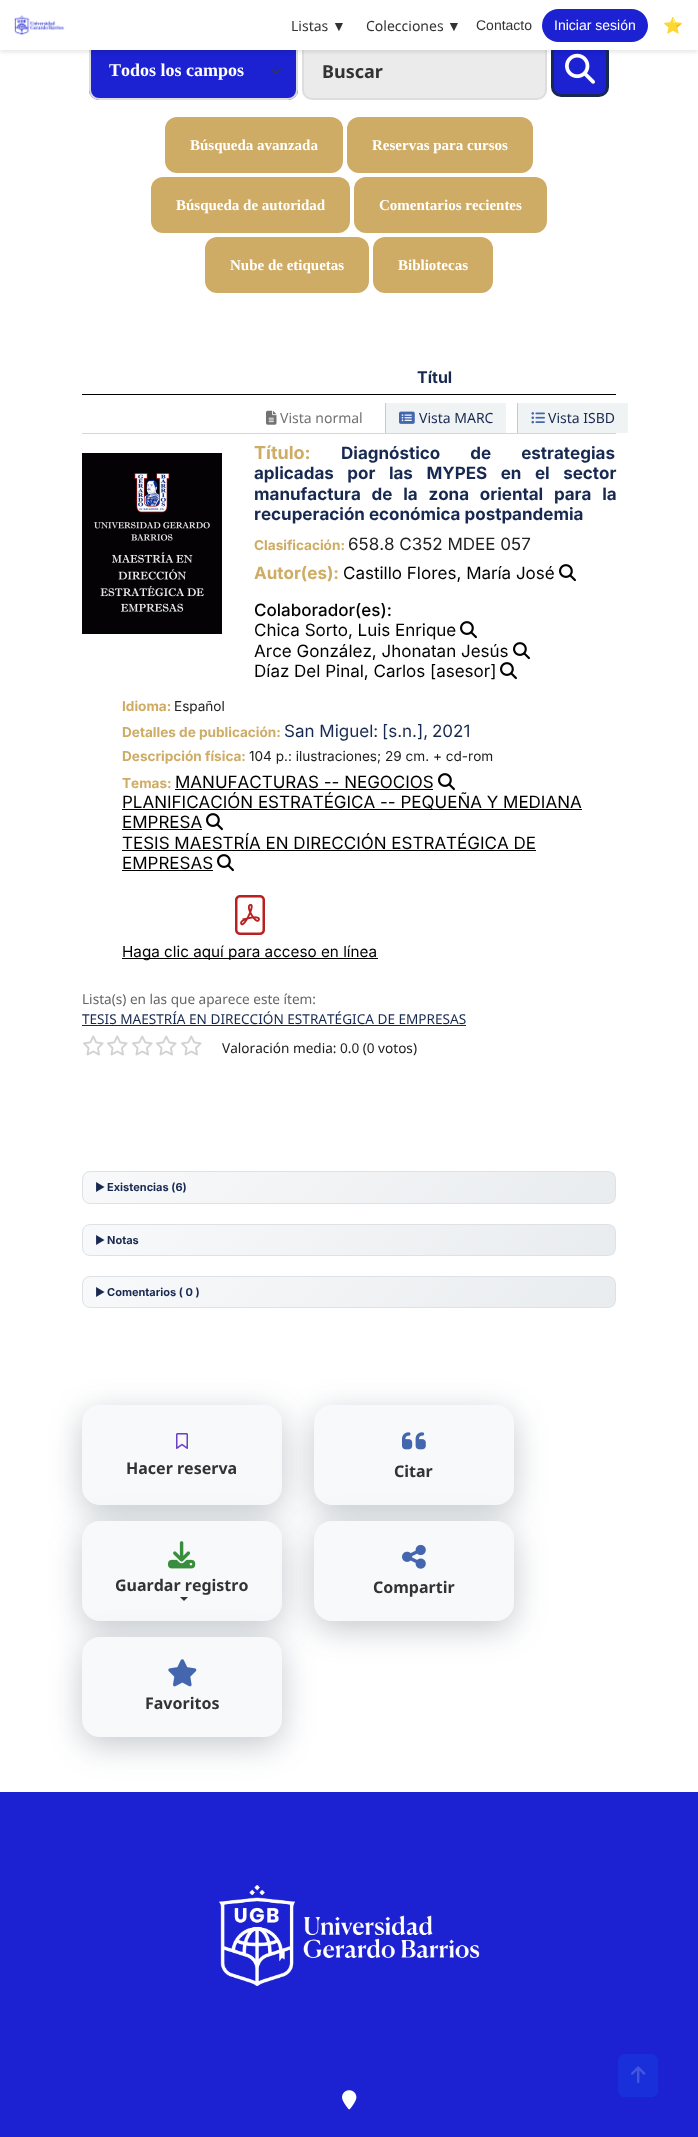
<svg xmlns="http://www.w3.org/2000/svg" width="698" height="2137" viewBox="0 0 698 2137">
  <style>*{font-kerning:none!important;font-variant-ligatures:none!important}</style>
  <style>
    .t1 { font: 14px Noto Sans; fill: #333; }
    .t2 { font: 14px Liberation Sans; fill: #333; }
    .t3 { font: 14px Liberation Sans; fill: #fff; }
    .t4 { font: 16px Noto Color Emoji; fill: #000; }
    .t5 { font: bold 18px Liberation Serif; fill: #fff; }
    .t6 { font: bold 18px Noto Sans; fill: #333; }
    .t7 { font: bold 15px Liberation Serif; fill: #fff; }
    .t8 { font: bold 16px Inter; fill: #182951; }
    .t9 { font: 14px Noto Sans; fill: #727272; }
    .t10 { font: 14px Noto Sans; fill: #182951; }
    .t11 { font: bold 18px Inter; fill: #cfac65; }
    .t12 { font: bold 17px Inter; fill: #182951; }
    .t13 { font: bold 13.6px Inter; fill: #cfac65; }
    .t14 { font: 17px Inter; fill: #202020; }
    .t15 { font: bold 17px Inter; fill: #cfac65; }
    .t16 { font: 17px Inter; fill: #000; }
    .t17 { font: 500 17px Inter; fill: #000; }
    .t18 { font: 13.6px Inter; fill: #202020; }
    .t19 { font: 17px Inter; fill: #182951; }
    .t20 { font: 15.25px Inter; fill: #000; }
    .t21 { font: 13.6px Noto Sans; fill: #666; }
    .t22 { font: 13.6px Noto Sans; fill: #182951; }
    .t23 { font: 13.6px Noto Sans; fill: #202020; }
    .t24 { font: 11px 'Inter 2'; fill: #182951; }
    .t25 { font: bold 11px Inter; fill: #182951; }
    .t26 { font: bold 16px Noto Sans; fill: #333; }
  </style>
  <defs>
    <clipPath id="clip1"><rect x="82" y="1171" width="534" height="33" rx="8"/></clipPath>
    <linearGradient id="g1" gradientUnits="userSpaceOnUse" x1="208" y1="1047" x2="490" y2="1328"><stop offset="0" stop-color="#f8f9fa"/><stop offset="1" stop-color="#e9ecef"/></linearGradient>
    <clipPath id="clip2"><rect x="82" y="1224" width="534" height="32" rx="8"/></clipPath>
    <linearGradient id="g2" gradientUnits="userSpaceOnUse" x1="208" y1="1100" x2="490" y2="1381"><stop offset="0" stop-color="#f8f9fa"/><stop offset="1" stop-color="#e9ecef"/></linearGradient>
    <clipPath id="clip3"><rect x="82" y="1276" width="534" height="32" rx="8"/></clipPath>
    <linearGradient id="g3" gradientUnits="userSpaceOnUse" x1="208" y1="1152" x2="490" y2="1433"><stop offset="0" stop-color="#f8f9fa"/><stop offset="1" stop-color="#e9ecef"/></linearGradient>
  </defs>
  <rect width="100%" height="100%" fill="#fff"/>
  <rect x="89" y="41" width="209" height="59" rx="10" fill="#1c21d1"/>
  <path d="M271.5 69L276 73L280.5 69" fill="none" stroke="#343a40" stroke-width="1.5" stroke-linecap="round" stroke-linejoin="round"/>
  <rect x="90" y="42" width="207" height="57" rx="9" fill="none" stroke="#ddd" stroke-width="2"/>
  <rect x="303" y="42" width="243" height="57" rx="9" fill="#ebebeb" stroke="#ddd" stroke-width="2"/>
  <rect x="552.5" y="42.5" width="55" height="53" rx="8.5" fill="#1c21d1" stroke="#182951" stroke-width="3"/>
  <image x="565" y="53" width="30" height="31" href="images/2.png"/>
  <rect x="0" y="2" width="698" height="50" fill="#0000001a" filter="blur(2px)"/>
  <rect x="0" y="0" width="698" height="50" fill="#fff"/>
  <image x="14" y="15" width="51" height="21" href="images/1.png"/>
  <text x="291" y="31" class="t1">Listas</text>
  <text x="332" y="31" class="t2">▼</text>
  <text x="366" y="31" class="t1">Colecciones</text>
  <text x="447" y="31" class="t2">▼</text>
  <text x="476" y="30" class="t2">Contacto</text>
  <rect x="542" y="9" width="106" height="33" rx="16.5" fill="#1c21d1"/>
  <text x="554" y="30" class="t3">Iniciar sesión</text>
  <text x="663" y="31" class="t4">⭐</text>
  <text x="109" y="76" class="t5">Todos los campos</text>
  <text x="322" y="78" class="t6">Buscar</text>
  <rect x="165" y="117" width="178" height="56" rx="12" fill="#cfac65"/>
  <text x="190" y="150" class="t7">Búsqueda avanzada</text>
  <rect x="347" y="117" width="186" height="56" rx="12" fill="#cfac65"/>
  <text x="372" y="150" class="t7">Reservas para cursos</text>
  <rect x="151" y="177" width="199" height="56" rx="12" fill="#cfac65"/>
  <text x="176" y="210" class="t7">Búsqueda de autoridad</text>
  <rect x="354" y="177" width="193" height="56" rx="12" fill="#cfac65"/>
  <text x="379" y="210" class="t7">Comentarios recientes</text>
  <rect x="205" y="237" width="164" height="56" rx="12" fill="#cfac65"/>
  <text x="230" y="270" class="t7">Nube de etiquetas</text>
  <rect x="373" y="237" width="120" height="56" rx="12" fill="#cfac65"/>
  <text x="398" y="270" class="t7">Bibliotecas</text>
  <rect x="82" y="394" width="534" height="1" fill="#000"/>
  <text x="417" y="383" class="t8">Títul</text>
  <rect x="82" y="433" width="534" height="1" fill="#d6d6d6"/>
  <image x="266" y="410" width="11" height="15" href="images/3.png"/>
  <text x="280" y="423" class="t9">Vista normal</text>
  <rect x="386" y="403" width="120" height="30" fill="#f0f3f3"/>
  <rect x="385" y="403" width="1" height="30" fill="#c9c9c9"/>
  <image x="399" y="411" width="16" height="13" href="images/4.png"/>
  <text x="419" y="423" class="t10">Vista MARC</text>
  <rect x="518" y="403" width="110" height="30" fill="#f0f3f3"/>
  <rect x="517" y="403" width="1" height="30" fill="#c9c9c9"/>
  <image x="531" y="412" width="14" height="12" href="images/5.png"/>
  <text x="548" y="423" class="t10">Vista ISBD</text>
  <text x="254" y="459" class="t11">Título:</text>
  <text x="341" y="459" word-spacing="26" class="t12">Diagnóstico de estrategias</text>
  <text x="254" y="479" word-spacing="9.5" class="t12">aplicadas por las MYPES en el sector</text>
  <text x="254" y="500" word-spacing="6.75" class="t12">manufactura de la zona oriental para la</text>
  <text x="254" y="520" class="t12">recuperación económica postpandemia</text>
  <text x="254" y="550" class="t13">Clasificación:</text>
  <text x="348" y="550" class="t14">658.8 C352 MDEE 057</text>
  <text x="254" y="579" class="t15">Autor(es):</text>
  <text x="343" y="579" class="t16">Castillo Flores, María José</text>
  <image x="559" y="564" width="17" height="18" href="images/6.png"/>
  <text x="254" y="616" class="t17">Colaborador(es):</text>
  <text x="254" y="636" class="t16">Chica Sorto, Luis Enrique</text>
  <image x="460" y="621" width="17" height="18" href="images/6.png"/>
  <text x="254" y="657" class="t16">Arce González, Jhonatan Jesús</text>
  <image x="513" y="642" width="17" height="18" href="images/6.png"/>
  <text x="254" y="677" class="t16">Díaz Del Pinal, Carlos [asesor]</text>
  <image x="500" y="662" width="17" height="18" href="images/6.png"/>
  <text x="122" y="711" class="t13">Idioma:</text>
  <text x="174" y="711" class="t18">Español</text>
  <text x="122" y="737" class="t13">Detalles de publicación:</text>
  <text x="284" y="737" class="t19">San Miguel:</text>
  <text x="382" y="737" class="t19">[s.n.],</text>
  <text x="432" y="737" class="t19">2021</text>
  <text x="122" y="761" class="t13">Descripción física:</text>
  <text x="249" y="761" class="t18">104 p.: ilustraciones; 29 cm. + cd-rom</text>
  <text x="175" y="788" class="t16">MANUFACTURAS -- NEGOCIOS</text>
  <rect x="175" y="789" width="258" height="1" fill="#000"/>
  <image x="438" y="773" width="17" height="18" href="images/6.png"/>
  <rect x="122" y="809" width="460" height="1" fill="#000"/>
  <text x="122" y="808" class="t16">PLANIFICACIÓN ESTRATÉGICA -- PEQUEÑA Y MEDIANA</text>
  <text x="122" y="828" class="t16">EMPRESA</text>
  <rect x="122" y="829" width="80" height="1" fill="#000"/>
  <image x="206" y="813" width="17" height="18" href="images/6.png"/>
  <text x="122" y="849" class="t16">TESIS MAESTRÍA EN DIRECCIÓN ESTRATÉGICA DE</text>
  <rect x="122" y="850" width="414" height="1" fill="#000"/>
  <text x="122" y="869" class="t16">EMPRESAS</text>
  <rect x="122" y="870" width="91" height="1" fill="#000"/>
  <image x="217" y="854" width="17" height="18" href="images/6.png"/>
  <text x="122" y="788" class="t13">Temas:</text>
  <image x="235" y="895" width="30" height="40" href="images/7.png"/>
  <rect x="122" y="958" width="256" height="1" fill="#000"/>
  <text x="122" y="957" class="t20">Haga clic aquí para acceso en línea</text>
  <image x="82" y="453" width="140" height="181" href="images/8.png"/>
  <text x="82" y="1004" class="t21">Lista(s) en las que aparece este ítem:</text>
  <text x="82" y="1024" class="t22">TESIS MAESTRÍA EN DIRECCIÓN ESTRATÉGICA DE EMPRESAS</text>
  <rect x="82" y="1025" width="384" height="1" fill="#182951"/>
  <image x="83" y="1035" width="21" height="21" href="images/9.png"/>
  <image x="107" y="1035" width="21" height="21" href="images/9.png"/>
  <image x="132" y="1035" width="21" height="21" href="images/9.png"/>
  <image x="156" y="1035" width="21" height="21" href="images/9.png"/>
  <image x="181" y="1035" width="21" height="21" href="images/9.png"/>
  <text x="222" y="1053" class="t23">Valoración media: 0.0 (0 votos)</text>
  <g clip-path="url(#clip1)">
    <rect x="83" y="1172" width="532" height="31" fill="url(#g1)"/>
  </g>
  <rect x="82.5" y="1171.5" width="533" height="32" rx="7.5" fill="none" stroke="#dee2e6"/>
  <text x="95" y="1191" class="t24">▶</text>
  <text x="107" y="1191" class="t25">Existencias (6)</text>
  <g clip-path="url(#clip2)">
    <rect x="83" y="1225" width="532" height="30" fill="url(#g2)"/>
  </g>
  <rect x="82.5" y="1224.5" width="533" height="31" rx="7.5" fill="none" stroke="#dee2e6"/>
  <text x="95" y="1244" class="t24">▶</text>
  <text x="107" y="1244" class="t25">Notas</text>
  <g clip-path="url(#clip3)">
    <rect x="83" y="1277" width="532" height="30" fill="url(#g3)"/>
  </g>
  <rect x="82.5" y="1276.5" width="533" height="31" rx="7.5" fill="none" stroke="#dee2e6"/>
  <text x="95" y="1296" class="t24">▶</text>
  <text x="107" y="1296" class="t25">Comentarios ( 0 )</text>
  <rect x="82" y="1413" width="200" height="100" rx="18" fill="#2c3e5047" filter="blur(16px)"/>
  <rect x="82" y="1405" width="200" height="100" rx="18" fill="#f8f9fa"/>
  <image x="176" y="1433" width="12" height="16" href="images/10.png"/>
  <text x="126" y="1474" class="t26">Hacer reserva</text>
  <rect x="314" y="1413" width="200" height="100" rx="18" fill="#2c3e5047" filter="blur(16px)"/>
  <rect x="314" y="1405" width="200" height="100" rx="18" fill="#f8f9fa"/>
  <image x="402" y="1432" width="24" height="18" href="images/11.png"/>
  <text x="394" y="1477" class="t26">Citar</text>
  <rect x="82" y="1529" width="200" height="100" rx="18" fill="#2c3e5047" filter="blur(16px)"/>
  <rect x="82" y="1521" width="200" height="100" rx="18" fill="#f8f9fa"/>
  <image x="168" y="1541" width="28" height="28" href="images/12.png"/>
  <text x="115" y="1591" class="t26">Guardar registro</text>
  <path d="M180 1597H188L184 1601Z" fill="#333"/>
  <rect x="314" y="1529" width="200" height="100" rx="18" fill="#2c3e5047" filter="blur(16px)"/>
  <rect x="314" y="1521" width="200" height="100" rx="18" fill="#f8f9fa"/>
  <image x="402" y="1544" width="24" height="25" href="images/13.png"/>
  <text x="373" y="1593" class="t26">Compartir</text>
  <rect x="0" y="1792" width="698" height="345" fill="#1c21d1"/>
  <rect x="82" y="1645" width="200" height="100" rx="18" fill="#2c3e5047" filter="blur(16px)"/>
  <rect x="82" y="1637" width="200" height="100" rx="18" fill="#f8f9fa"/>
  <image x="168" y="1659" width="29" height="28" href="images/14.png"/>
  <text x="145" y="1709" class="t26">Favoritos</text>
  <image x="219" y="1885" width="261" height="102" href="images/15.png"/>
  <image x="342" y="2090" width="15" height="20" href="images/16.png"/>
  <rect x="618.5" y="2054.5" width="39" height="42" rx="5.5" fill="#192fd9" stroke="#192fd9"/>
  <image x="631" y="2066" width="15" height="18" href="images/17.png"/>
</svg>
